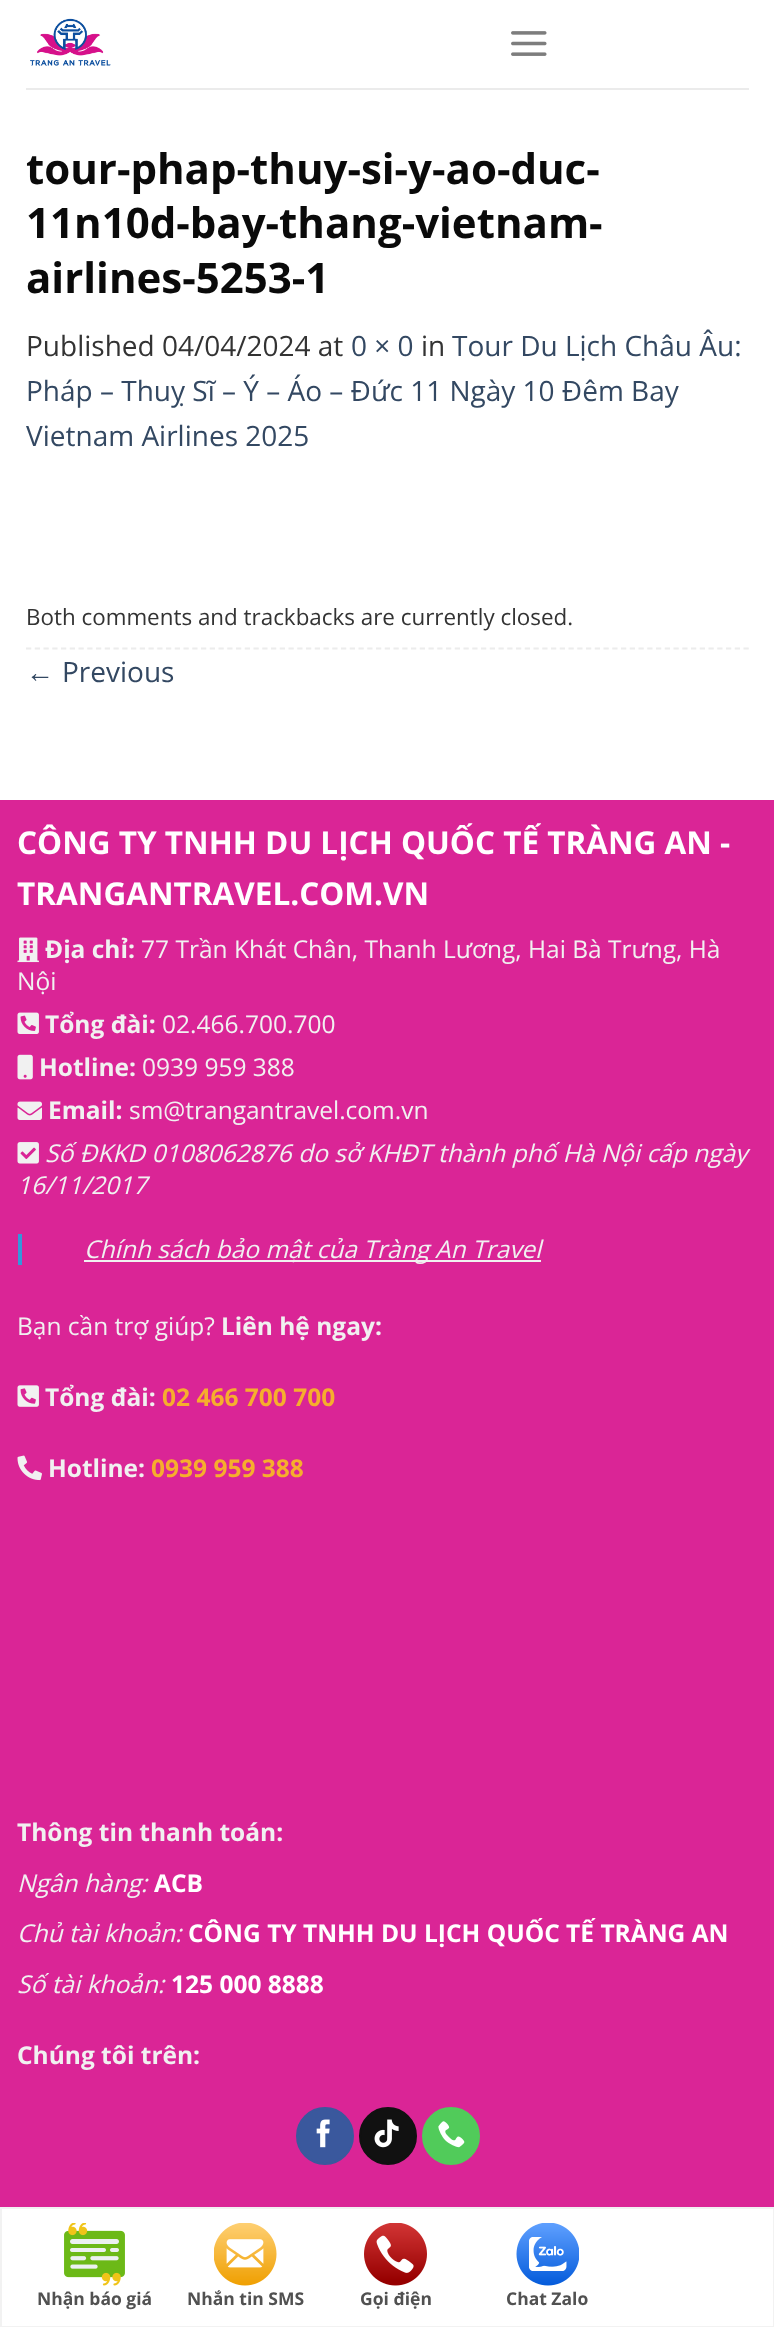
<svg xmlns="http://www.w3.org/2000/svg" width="774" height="2327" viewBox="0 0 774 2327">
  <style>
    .t1 { font: bold 42px Open Sans; fill: #0a0a0a; }
    .t2 { font: 28px Open Sans; fill: #333; }
    .t3 { font: 28px Open Sans; fill: #334862; }
    .t4 { font: 22.4px Open Sans; fill: #333; }
    .t5 { font: 28px Liberation Sans; fill: #334862; }
    .t6 { font: bold 31.5px Open Sans; fill: #fff; }
    .t7 { font: bold 24.5px Open Sans; fill: #f1f1f1; }
    .t8 { font: 24.5px Open Sans; fill: #f1f1f1; }
    .t9 { font: italic 24.5px Open Sans; fill: #f1f1f1; }
    .t10 { font: bold 24.5px Open Sans; fill: #f6ae2d; }
    .t11 { font: bold 24.5px Open Sans; fill: #fff; }
    .t12 { font: bold 17.5px Open Sans; fill: #515151; }
  </style>
  <rect width="100%" height="100%" fill="#fff"/>
  <image x="30" y="18" width="81" height="48" href="images/1.png"/>
  <image x="511" y="31" width="36" height="25" href="images/2.png"/>
  <rect x="26" y="88" width="723" height="2" fill="#ebebeb"/>
  <text x="26" y="184" class="t1">tour-phap-thuy-si-y-ao-duc-</text>
  <text x="26" y="238" class="t1">11n10d-bay-thang-vietnam-</text>
  <text x="26" y="293" class="t1">airlines-5253-1</text>
  <text x="26" y="356" class="t2">Published 04/04/2024 at</text>
  <text x="351" y="356" class="t3">0 × 0</text>
  <text x="421" y="356" class="t2">in</text>
  <text x="452" y="356" class="t3">Tour Du Lịch Châu Âu:</text>
  <text x="26" y="401" class="t3">Pháp – Thuỵ Sĩ – Ý – Áo – Đức 11 Ngày 10 Đêm Bay</text>
  <text x="26" y="446" class="t3">Vietnam Airlines 2025</text>
  <path d="M26 648.5H749" fill="none" stroke="#ececec" stroke-width="1.8" stroke-dasharray="5.25 3.5"/>
  <text x="26" y="625" class="t4">Both comments and trackbacks are currently closed.</text>
  <text x="26" y="682" class="t5">←</text>
  <text x="62" y="682" class="t3">Previous</text>
  <rect x="0" y="800" width="774" height="1407" fill="#da2596"/>
  <text x="17" y="854" class="t6">CÔNG TY TNHH DU LỊCH QUỐC TẾ TRÀNG AN -</text>
  <text x="17" y="905" class="t6">TRANGANTRAVEL.COM.VN</text>
  <image x="17" y="937" width="22" height="26" href="images/3.png"/>
  <text x="45" y="958" class="t7">Địa chỉ:</text>
  <text x="141" y="958" class="t8">77 Trần Khát Chân, Thanh Lương, Hai Bà Trưng, Hà</text>
  <text x="17" y="990" class="t8">Nội</text>
  <image x="17" y="1012" width="22" height="22" href="images/4.png"/>
  <text x="45" y="1033" class="t7">Tổng đài:</text>
  <text x="162" y="1033" class="t8">02.466.700.700</text>
  <image x="17" y="1054" width="16" height="26" href="images/5.png"/>
  <text x="39" y="1076" class="t7">Hotline:</text>
  <text x="142" y="1076" class="t8">0939 959 388</text>
  <image x="17" y="1101" width="25" height="19" href="images/6.png"/>
  <text x="48" y="1119" class="t7">Email:</text>
  <text x="129" y="1119" class="t8">sm@trangantravel.com.vn</text>
  <image x="17" y="1142" width="22" height="22" href="images/7.png"/>
  <text x="45" y="1162" class="t9">Số ĐKKD 0108062876 do sở KHĐT thành phố Hà Nội cấp ngày</text>
  <text x="17" y="1194" class="t9">16/11/2017</text>
  <rect x="18" y="1234" width="4" height="31" fill="#3498db"/>
  <rect x="84" y="1260" width="457" height="2" fill="#f1f1f1"/>
  <text x="84" y="1258" class="t9">Chính sách bảo mật của Tràng An Travel</text>
  <text x="17" y="1335" class="t8">Bạn cần trợ giúp?</text>
  <text x="221" y="1335" class="t7">Liên hệ ngay:</text>
  <image x="17" y="1385" width="22" height="22" href="images/8.png"/>
  <text x="45" y="1406" class="t7">Tổng đài:</text>
  <text x="162" y="1406" class="t10">02 466 700 700</text>
  <image x="17" y="1455" width="25" height="26" href="images/9.png"/>
  <text x="48" y="1477" class="t7">Hotline:</text>
  <text x="151" y="1477" class="t10">0939 959 388</text>
  <text x="17" y="1841" class="t7">Thông tin thanh toán:</text>
  <text x="17" y="1892" class="t9">Ngân hàng:</text>
  <text x="154" y="1892" class="t11">ACB</text>
  <text x="17" y="1942" class="t9">Chủ tài khoản:</text>
  <text x="188" y="1942" class="t11">CÔNG TY TNHH DU LỊCH QUỐC TẾ TRÀNG AN</text>
  <text x="17" y="1993" class="t9">Số tài khoản:</text>
  <text x="171" y="1993" class="t11">125 000 8888</text>
  <text x="17" y="2064" class="t7">Chúng tôi trên:</text>
  <circle cx="325" cy="2136" r="28" fill="#3a589d" stroke="#3a589d" stroke-width="2"/>
  <image x="316" y="2119" width="14" height="29" href="images/10.png"/>
  <circle cx="388" cy="2136" r="28" fill="#111" stroke="#111" stroke-width="2"/>
  <image x="374" y="2119" width="25" height="29" href="images/11.png"/>
  <circle cx="451" cy="2136" r="28" fill="#51cb5a" stroke="#51cb5a" stroke-width="2"/>
  <image x="438" y="2121" width="27" height="27" href="images/12.png"/>
  <rect x="1" y="2208" width="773" height="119" fill="none" stroke="#f2f2f2" stroke-width="2"/>
  <image x="64" y="2223" width="61" height="63" href="images/13.png"/>
  <text x="37" y="2305" class="t12">Nhận báo giá</text>
  <image x="214" y="2223" width="63" height="63" href="images/14.png"/>
  <text x="187" y="2305" class="t12">Nhắn tin SMS</text>
  <image x="364" y="2223" width="63" height="63" href="images/15.png"/>
  <text x="360" y="2305" class="t12">Gọi điện</text>
  <image x="516" y="2223" width="63" height="63" href="images/16.png"/>
  <text x="506" y="2305" class="t12">Chat Zalo</text>
</svg>
